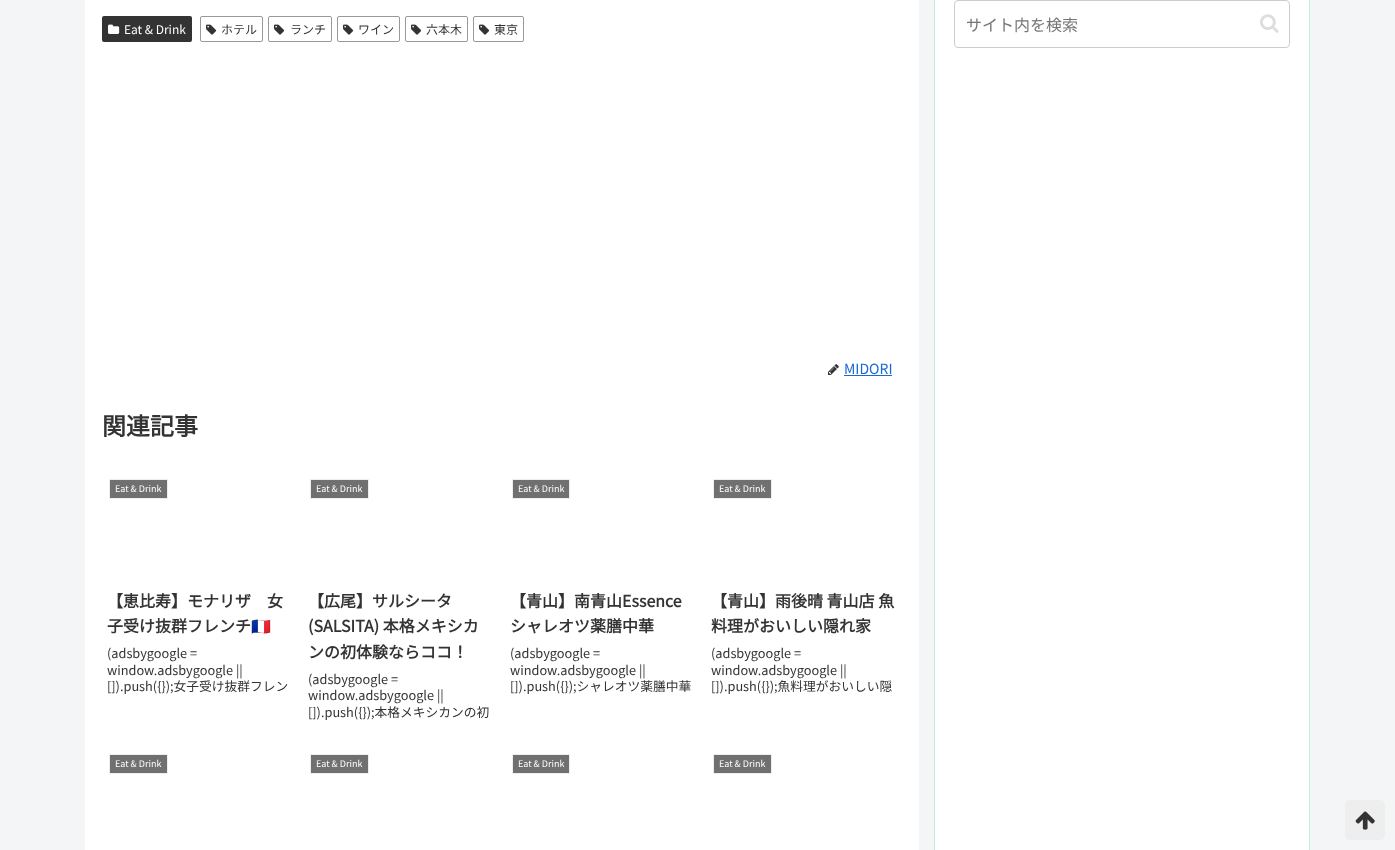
<svg xmlns="http://www.w3.org/2000/svg" width="1395" height="850" viewBox="0 0 1395 850">
  <style>
    .t1 { font: 100 12px Noto Sans JP; fill: #fff; }
    .t2 { font: 100 12px Noto Sans JP; fill: #333; }
    .t3 { font: 100 14px Noto Sans JP; fill: #1967d2; }
    .t4 { font: bold 24px Noto Sans JP; fill: #333; }
    .t5 { font: 100 9px Noto Sans JP; fill: #fff; }
    .t6 { font: bold 16px Noto Sans JP; fill: #333; }
    .t7 { font: bold 16px Noto Color Emoji; fill: #333; }
    .t8 { font: 100 12.75px Noto Sans JP; fill: #333; }
    .t9 { font: 100 16px Noto Sans JP; fill: #757575; }
  </style>
  <rect width="100%" height="100%" fill="#f4f5f7"/>
  <rect x="85" y="0" width="834" height="850" fill="#fff"/>
  <rect x="102" y="16" width="90" height="26" rx="2" fill="#333"/>
  <image x="108" y="24" width="12" height="10" href="images/1.png"/>
  <text x="124" y="34" class="t1">Eat &amp; Drink</text>
  <rect x="200.5" y="16.5" width="62" height="25" rx="1.5" fill="none" stroke="#999"/>
  <image x="206" y="24" width="11" height="11" href="images/2.png"/>
  <text x="221" y="34" class="t2">ホテル</text>
  <rect x="268.5" y="16.5" width="63" height="25" rx="1.5" fill="none" stroke="#999"/>
  <image x="274" y="24" width="11" height="11" href="images/2.png"/>
  <text x="290" y="34" class="t2">ランチ</text>
  <rect x="337.5" y="16.5" width="62" height="25" rx="1.5" fill="none" stroke="#999"/>
  <image x="343" y="24" width="11" height="11" href="images/2.png"/>
  <text x="358" y="34" class="t2">ワイン</text>
  <rect x="405.5" y="16.5" width="62" height="25" rx="1.5" fill="none" stroke="#999"/>
  <image x="411" y="24" width="11" height="11" href="images/2.png"/>
  <text x="426" y="34" class="t2">六本木</text>
  <rect x="473.5" y="16.5" width="50" height="25" rx="1.5" fill="none" stroke="#999"/>
  <image x="479" y="24" width="11" height="11" href="images/2.png"/>
  <text x="494" y="34" class="t2">東京</text>
  <image x="828" y="364" width="11" height="11" href="images/3.png"/>
  <text x="844" y="374" class="t3">MIDORI</text>
  <rect x="844" y="375" width="48" height="1" fill="#1967d2"/>
  <text x="102" y="435" class="t4">関連記事</text>
  <rect x="109.5" y="479.5" width="58" height="19" fill="#707070" stroke="#eee"/>
  <text x="115" y="492" class="t5">Eat &amp; Drink</text>
  <text x="107" y="607" class="t6">【恵比寿】モナリザ　女</text>
  <text x="107" y="632" class="t6">子受け抜群フレンチ</text>
  <text x="251" y="632" class="t7">🇫🇷</text>
  <text x="107" y="658" class="t8">(adsbygoogle =</text>
  <text x="107" y="675" class="t8">window.adsbygoogle ||</text>
  <text x="107" y="691" class="t8">[]).push({});女子受け抜群フレン</text>
  <rect x="310.5" y="479.5" width="58" height="19" fill="#707070" stroke="#eee"/>
  <text x="316" y="492" class="t5">Eat &amp; Drink</text>
  <text x="308" y="607" class="t6">【広尾】サルシータ</text>
  <text x="308" y="632" class="t6">(SALSITA) 本格メキシカ</text>
  <text x="308" y="658" class="t6">ンの初体験ならココ！</text>
  <text x="308" y="684" class="t8">(adsbygoogle =</text>
  <text x="308" y="700" class="t8">window.adsbygoogle ||</text>
  <text x="308" y="717" class="t8">[]).push({});本格メキシカンの初</text>
  <rect x="512.5" y="479.5" width="57" height="19" fill="#707070" stroke="#eee"/>
  <text x="518" y="492" class="t5">Eat &amp; Drink</text>
  <text x="510" y="607" class="t6">【青山】南青山Essence</text>
  <text x="510" y="632" class="t6">シャレオツ薬膳中華</text>
  <text x="510" y="658" class="t8">(adsbygoogle =</text>
  <text x="510" y="675" class="t8">window.adsbygoogle ||</text>
  <text x="510" y="691" class="t8">[]).push({});シャレオツ薬膳中華</text>
  <rect x="713.5" y="479.5" width="58" height="19" fill="#707070" stroke="#eee"/>
  <text x="719" y="492" class="t5">Eat &amp; Drink</text>
  <text x="711" y="607" class="t6">【青山】雨後晴 青山店 魚</text>
  <text x="711" y="632" class="t6">料理がおいしい隠れ家</text>
  <text x="711" y="658" class="t8">(adsbygoogle =</text>
  <text x="711" y="675" class="t8">window.adsbygoogle ||</text>
  <text x="711" y="691" class="t8">[]).push({});魚料理がおいしい隠</text>
  <rect x="109.5" y="754.5" width="58" height="19" fill="#707070" stroke="#eee"/>
  <text x="115" y="767" class="t5">Eat &amp; Drink</text>
  <rect x="310.5" y="754.5" width="58" height="19" fill="#707070" stroke="#eee"/>
  <text x="316" y="767" class="t5">Eat &amp; Drink</text>
  <rect x="512.5" y="754.5" width="57" height="19" fill="#707070" stroke="#eee"/>
  <text x="518" y="767" class="t5">Eat &amp; Drink</text>
  <rect x="713.5" y="754.5" width="58" height="19" fill="#707070" stroke="#eee"/>
  <text x="719" y="767" class="t5">Eat &amp; Drink</text>
  <rect x="934.5" y="-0.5" width="375" height="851" fill="#fff" stroke="#c2edd8"/>
  <rect x="954.5" y="0.5" width="335" height="47" rx="3.5" fill="none" stroke="#ccc"/>
  <text x="966" y="31" class="t9">サイト内を検索</text>
  <image x="1260" y="14" width="19" height="19" href="images/4.png"/>
  <rect x="1345" y="800" width="40" height="40" rx="5" fill="#eee"/>
  <image x="1355" y="811" width="20" height="19" href="images/5.png"/>
</svg>
